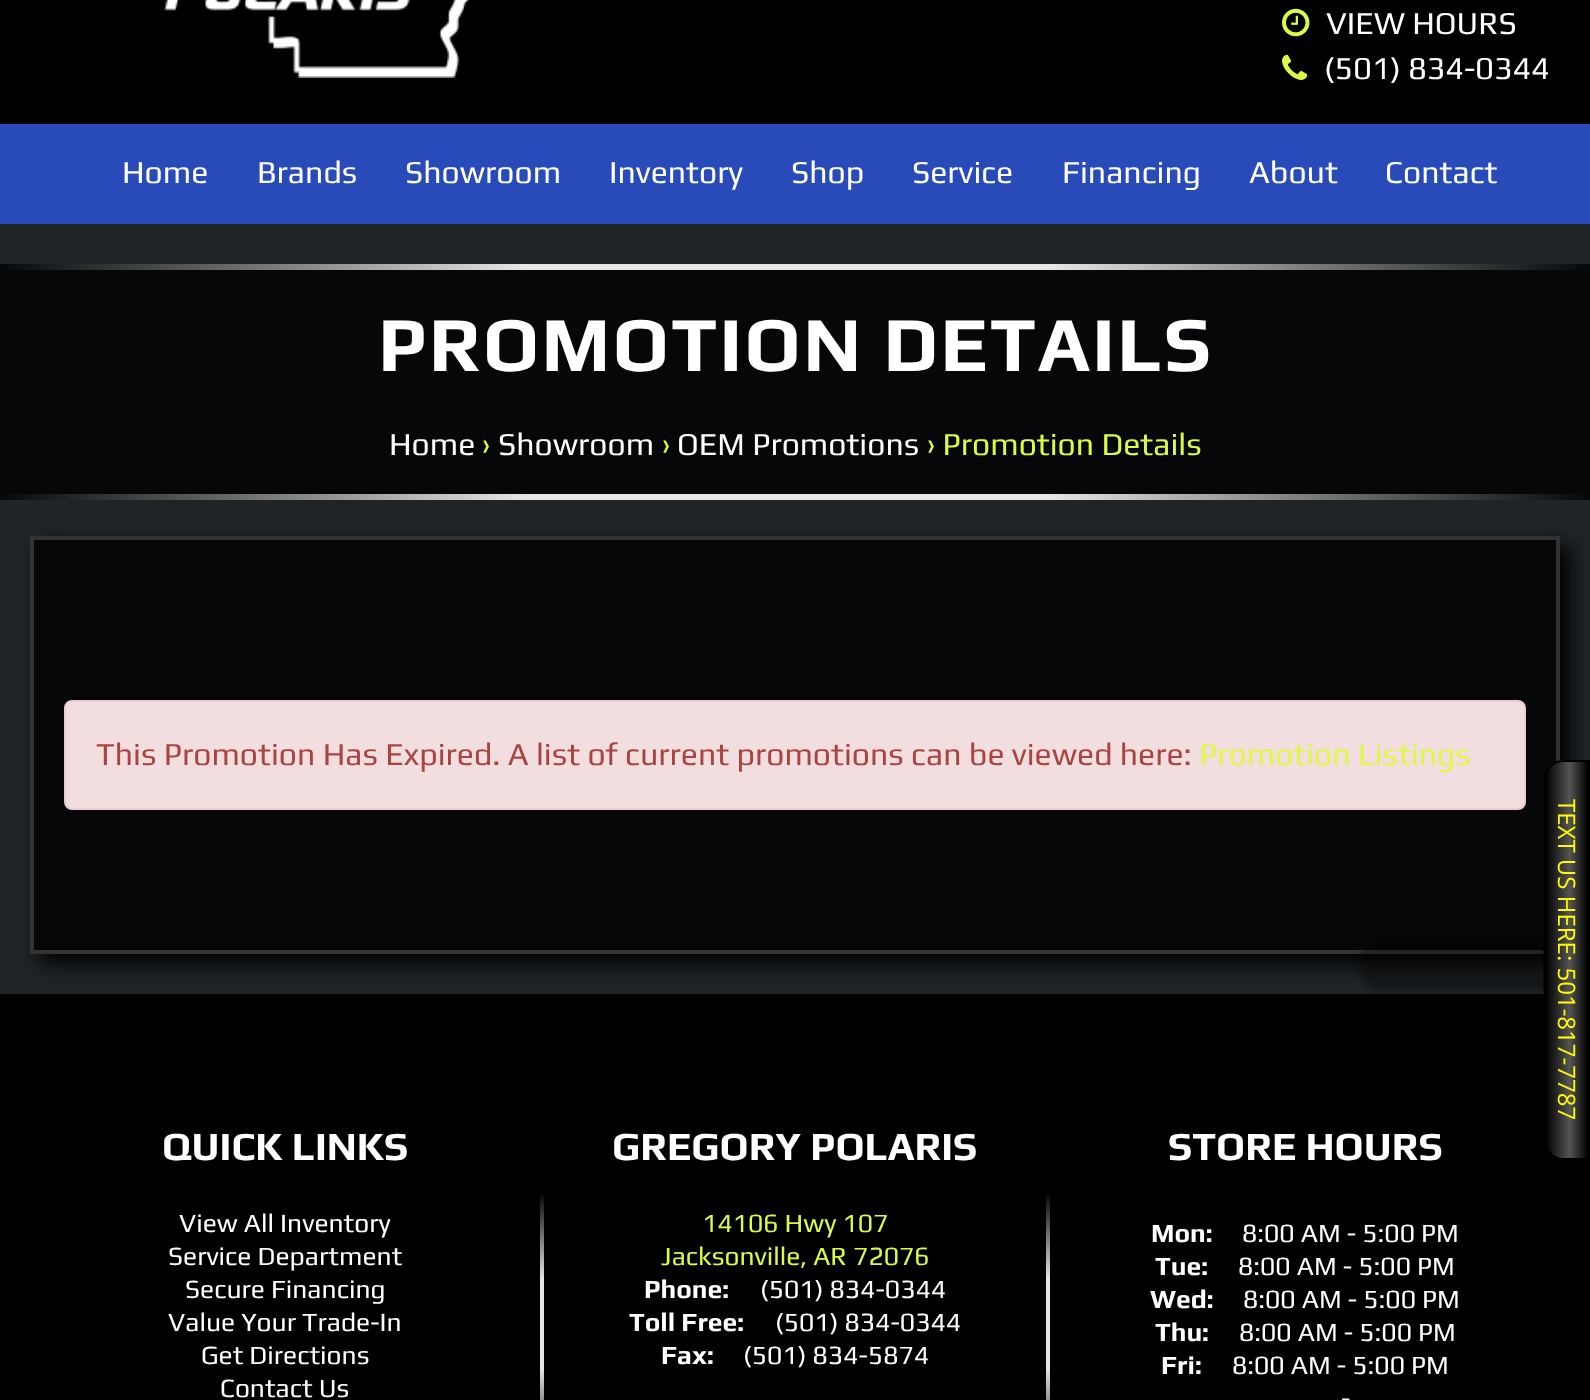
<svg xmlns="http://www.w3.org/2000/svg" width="1590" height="1400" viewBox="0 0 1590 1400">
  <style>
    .t1 { font: 32px Play; fill: #fff; }
    .t2 { font: 24px Open Sans; fill: #fffb04; }
    .t3 { font: bold 77.75px Play; letter-spacing: 2px; fill: #fff; }
    .t4 { font: 32px Play; fill: #def948; }
    .t5 { font: 32px Play; fill: #a94442; }
    .t6 { font: bold 40px Play; fill: #fff; }
    .t7 { font: 26.4px Play; fill: #fff; }
    .t8 { font: 26.4px Play; fill: #def948; }
    .t9 { font: bold 26.4px Play; fill: #fff; }
  </style>
  <defs>
    <linearGradient id="g1" gradientUnits="userSpaceOnUse" x1="1588" y1="960" x2="1546" y2="960"><stop offset="0" stop-color="#000"/><stop offset="0.44" stop-color="#555"/><stop offset="1" stop-color="#000"/></linearGradient>
    <linearGradient id="g2" gradientUnits="userSpaceOnUse" x1="1546" y1="960" x2="1503" y2="960"><stop offset="0" stop-color="#000"/><stop offset="0.44" stop-color="#555"/><stop offset="1" stop-color="#000"/></linearGradient>
    <linearGradient id="g3" gradientUnits="userSpaceOnUse" x1="0" y1="267" x2="1590" y2="267"><stop offset="0" stop-color="#060708"/><stop offset="0.33" stop-color="#e6e6e6"/><stop offset="0.66" stop-color="#e6e6e6"/><stop offset="1" stop-color="#060708"/></linearGradient>
    <linearGradient id="g4" gradientUnits="userSpaceOnUse" x1="0" y1="497" x2="1590" y2="497"><stop offset="0" stop-color="#060708"/><stop offset="0.33" stop-color="#e6e6e6"/><stop offset="0.66" stop-color="#e6e6e6"/><stop offset="1" stop-color="#060708"/></linearGradient>
    <linearGradient id="g5" gradientUnits="userSpaceOnUse" x1="542" y1="1192" x2="542" y2="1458"><stop offset="0" stop-color="#000"/><stop offset="0.33" stop-color="#e6e6e6"/><stop offset="0.66" stop-color="#e6e6e6"/><stop offset="1" stop-color="#000"/></linearGradient>
    <linearGradient id="g6" gradientUnits="userSpaceOnUse" x1="1048" y1="1192" x2="1048" y2="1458"><stop offset="0" stop-color="#000"/><stop offset="0.33" stop-color="#e6e6e6"/><stop offset="0.66" stop-color="#e6e6e6"/><stop offset="1" stop-color="#000"/></linearGradient>
  </defs>
  <rect width="100%" height="100%" fill="#202427"/>
  <rect x="0" y="0" width="1590" height="124" fill="#000"/>
  <image x="164" y="0" width="306" height="78" href="images/1.png"/>
  <image x="1282" y="8" width="28" height="29" href="images/2.png"/>
  <text x="1326" y="34" class="t1">VIEW HOURS</text>
  <image x="1282" y="54" width="26" height="26" href="images/3.png"/>
  <text x="1324" y="79" class="t1">(501) 834-0344</text>
  <rect x="0" y="124" width="1590" height="100" fill="#294bba"/>
  <text x="122" y="183" class="t1">Home</text>
  <text x="257" y="183" class="t1">Brands</text>
  <text x="405" y="183" class="t1">Showroom</text>
  <text x="609" y="183" class="t1">Inventory</text>
  <text x="791" y="183" class="t1">Shop</text>
  <text x="912" y="183" class="t1">Service</text>
  <text x="1062" y="183" class="t1">Financing</text>
  <text x="1249" y="183" class="t1">About</text>
  <text x="1385" y="183" class="t1">Contact</text>
  <rect x="40" y="546" width="1530" height="418" fill="#000" filter="blur(10px)"/>
  <rect x="32" y="538" width="1526" height="414" fill="#060708" stroke="#333" stroke-width="4"/>
  <rect x="0" y="994" width="1590" height="406" fill="#000"/>
  <rect x="1360" y="942" width="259" height="48" rx="20" fill="#00000054" filter="blur(3px)"/>
  <path d="M1588 760H1564C1556 760 1549 764 1546 771V1149C1549 1156 1556 1160 1564 1160H1588Z" fill="url(#g1)"/>
  <path d="M1546 771V1149C1545 1147 1544 1143 1544 1140V780C1544 777 1545 773 1546 771Z" fill="url(#g2)"/>
  <path d="M1589 761V1159H1563.5C1553 1159 1544.5 1150.5 1544.5 1140V780C1544.5 769.5 1553 761 1563.5 761Z" fill="none" stroke="#000" stroke-width="2"/>
  <text x="1558" y="799" transform="rotate(90 1558 799)" class="t2">TEXT US HERE: 501-817-7787</text>
  <rect x="0" y="270" width="1590" height="224" fill="#060708"/>
  <rect x="0" y="264" width="1590" height="6" fill="url(#g3)"/>
  <text x="378" y="371" class="t3">PROMOTION DETAILS</text>
  <text x="389" y="455" class="t1">Home</text>
  <text x="482" y="455" class="t4">›</text>
  <text x="498" y="455" class="t1">Showroom</text>
  <text x="662" y="455" class="t4">›</text>
  <text x="677" y="455" class="t1">OEM Promotions</text>
  <text x="927" y="455" class="t4">› Promotion Details</text>
  <rect x="0" y="494" width="1590" height="6" fill="url(#g4)"/>
  <rect x="65" y="701" width="1460" height="108" rx="7" fill="#f2dede" stroke="#ebccd1" stroke-width="2"/>
  <text x="96" y="765" class="t5">This Promotion Has Expired. A list of current promotions can be viewed here:</text>
  <text x="1199" y="765" class="t4">Promotion Listings</text>
  <text x="162" y="1160" class="t6">QUICK LINKS</text>
  <text x="179" y="1232" class="t7">View All Inventory</text>
  <text x="168" y="1265" class="t7">Service Department</text>
  <text x="185" y="1298" class="t7">Secure Financing</text>
  <text x="168" y="1331" class="t7">Value Your Trade-In</text>
  <text x="201" y="1364" class="t7">Get Directions</text>
  <text x="220" y="1397" class="t7">Contact Us</text>
  <rect x="540" y="1192" width="4" height="208" fill="url(#g5)"/>
  <text x="612" y="1160" class="t6">GREGORY POLARIS</text>
  <text x="702" y="1232" class="t8">14106 Hwy 107</text>
  <text x="661" y="1265" class="t8">Jacksonville, AR 72076</text>
  <text x="644" y="1298" class="t9">Phone:</text>
  <text x="760" y="1298" class="t7">(501) 834-0344</text>
  <text x="629" y="1331" class="t9">Toll Free:</text>
  <text x="775" y="1331" class="t7">(501) 834-0344</text>
  <text x="661" y="1364" class="t9">Fax:</text>
  <text x="743" y="1364" class="t7">(501) 834-5874</text>
  <rect x="1046" y="1192" width="4" height="208" fill="url(#g6)"/>
  <text x="1168" y="1160" class="t6">STORE HOURS</text>
  <text x="1151" y="1242" class="t9">Mon:</text>
  <text x="1242" y="1242" class="t7">8:00 AM - 5:00 PM</text>
  <text x="1155" y="1275" class="t9">Tue:</text>
  <text x="1238" y="1275" class="t7">8:00 AM - 5:00 PM</text>
  <text x="1150" y="1308" class="t9">Wed:</text>
  <text x="1243" y="1308" class="t7">8:00 AM - 5:00 PM</text>
  <text x="1155" y="1341" class="t9">Thu:</text>
  <text x="1239" y="1341" class="t7">8:00 AM - 5:00 PM</text>
  <text x="1161" y="1374" class="t9">Fri:</text>
  <text x="1232" y="1374" class="t7">8:00 AM - 5:00 PM</text>
  <text x="1341" y="1407" class="t7">-</text>
</svg>
